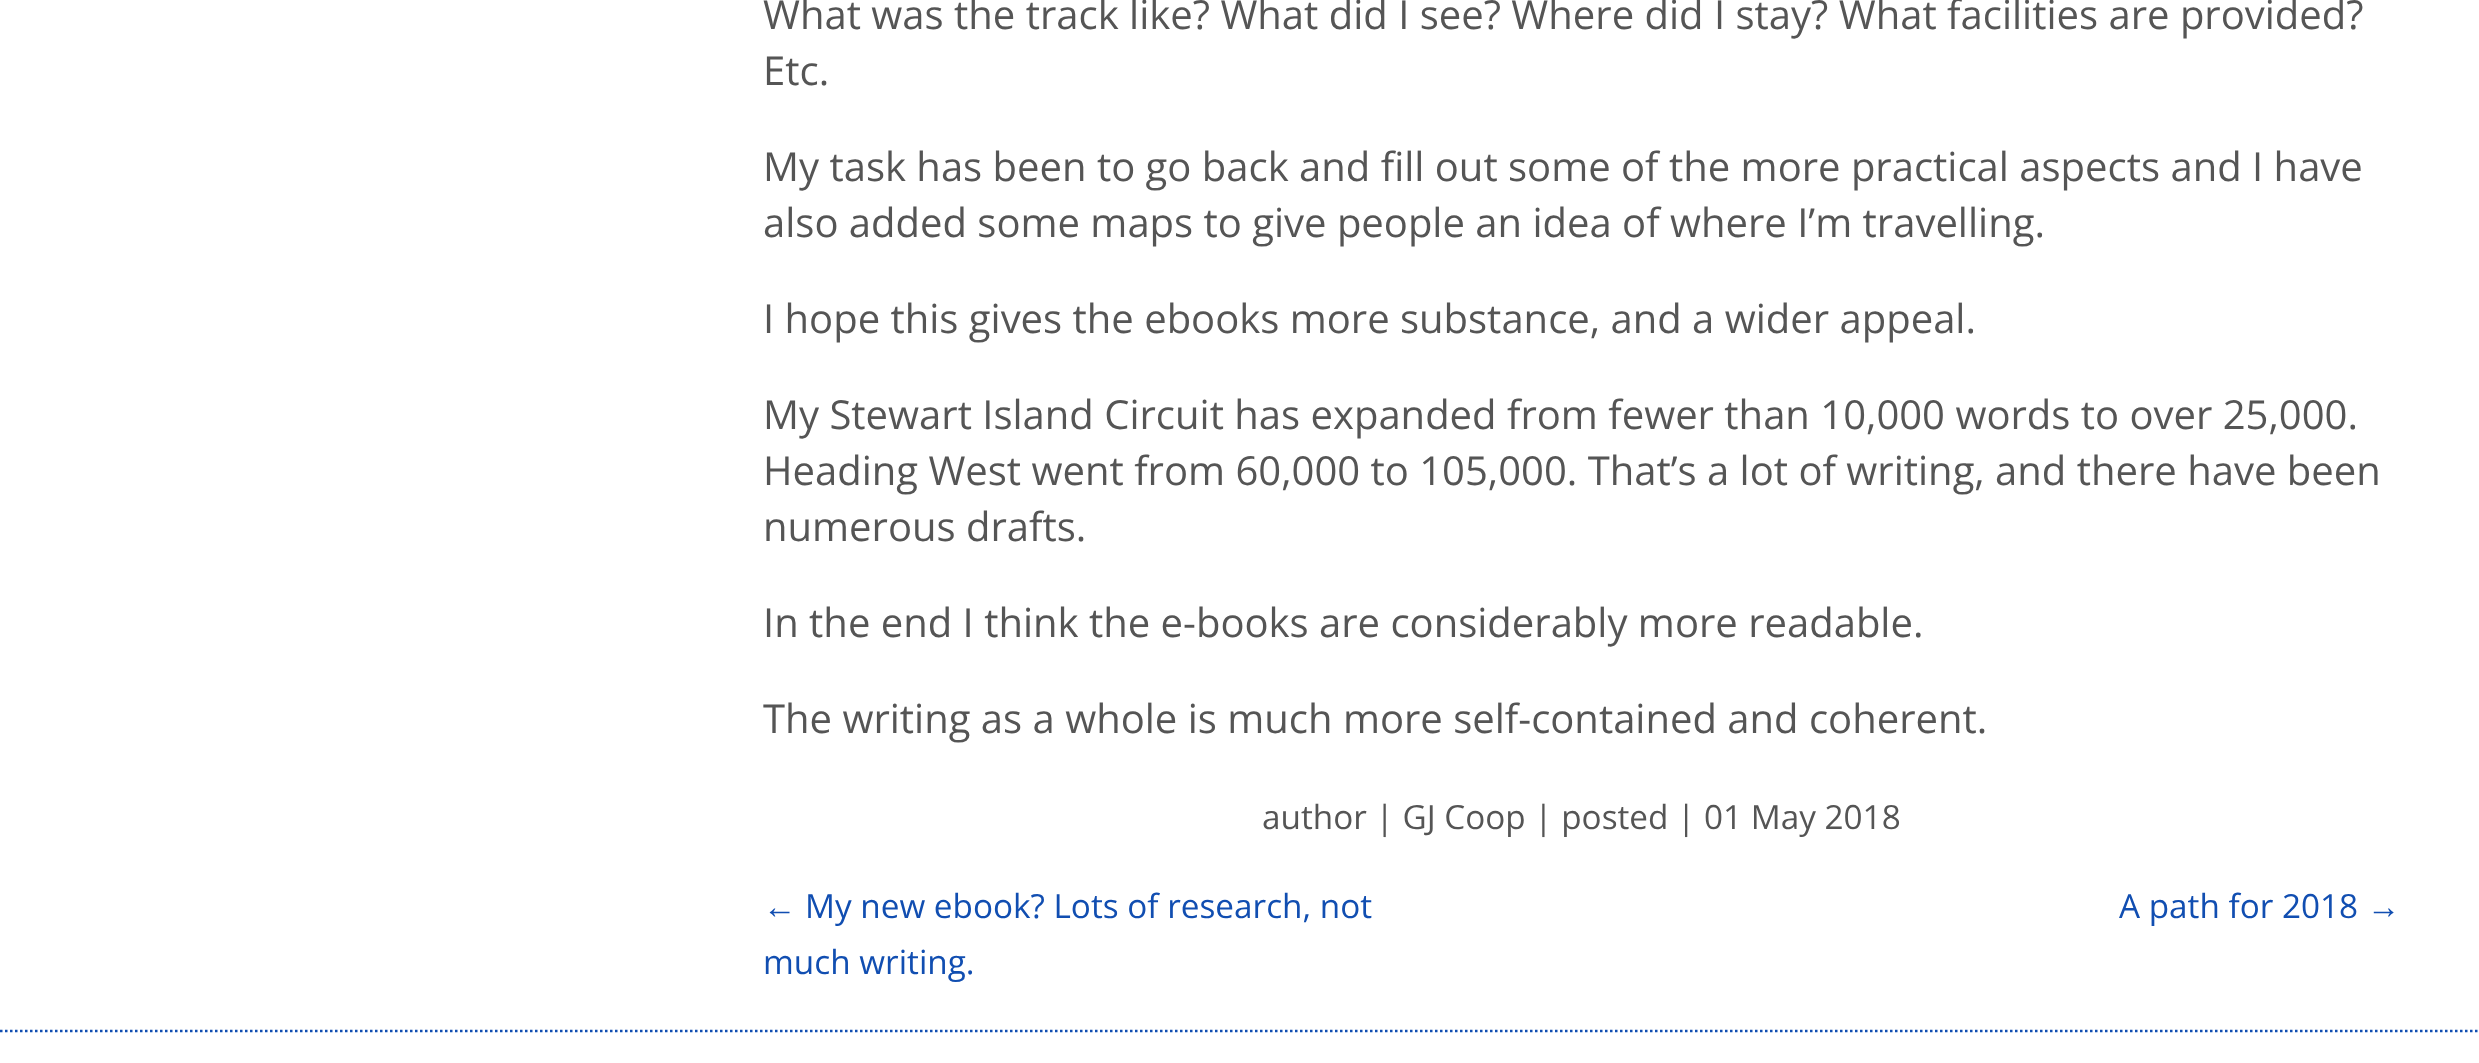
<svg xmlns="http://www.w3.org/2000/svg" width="2479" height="1063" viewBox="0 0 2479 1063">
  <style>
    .t1 { font: 40px Open Sans; fill: #555; }
    .t2 { font: 33.3px Open Sans; fill: #555; }
    .t3 { font: 33.3px Liberation Sans; fill: #114eb1; }
    .t4 { font: 33.3px Open Sans; fill: #114eb1; }
  </style>
  <rect width="100%" height="100%" fill="#fff"/>
  <text x="763" y="29" class="t1">What was the track like? What did I see? Where did I stay? What facilities are provided?</text>
  <text x="763" y="85" class="t1">Etc.</text>
  <text x="763" y="181" class="t1">My task has been to go back and fill out some of the more practical aspects and I have</text>
  <text x="763" y="237" class="t1">also added some maps to give people an idea of where I’m travelling.</text>
  <text x="763" y="333" class="t1">I hope this gives the ebooks more substance, and a wider appeal.</text>
  <text x="763" y="429" class="t1">My Stewart Island Circuit has expanded from fewer than 10,000 words to over 25,000.</text>
  <text x="763" y="485" class="t1">Heading West went from 60,000 to 105,000. That’s a lot of writing, and there have been</text>
  <text x="763" y="541" class="t1">numerous drafts.</text>
  <text x="763" y="637" class="t1">In the end I think the e-books are considerably more readable.</text>
  <text x="763" y="733" class="t1">The writing as a whole is much more self-contained and coherent.</text>
  <text x="1262" y="829" class="t2">author | GJ Coop | posted | 01 May 2018</text>
  <text x="763" y="918" class="t3">←</text>
  <text x="805" y="918" class="t4">My new ebook? Lots of research, not</text>
  <text x="763" y="974" class="t4">much writing.</text>
  <text x="2119" y="918" class="t4">A path for 2018</text>
  <text x="2367" y="918" class="t3">→</text>
  <path d="M0 1031H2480" fill="none" stroke="#114eb1" stroke-width="2.5" stroke-dasharray="2.5 2.5"/>
</svg>
